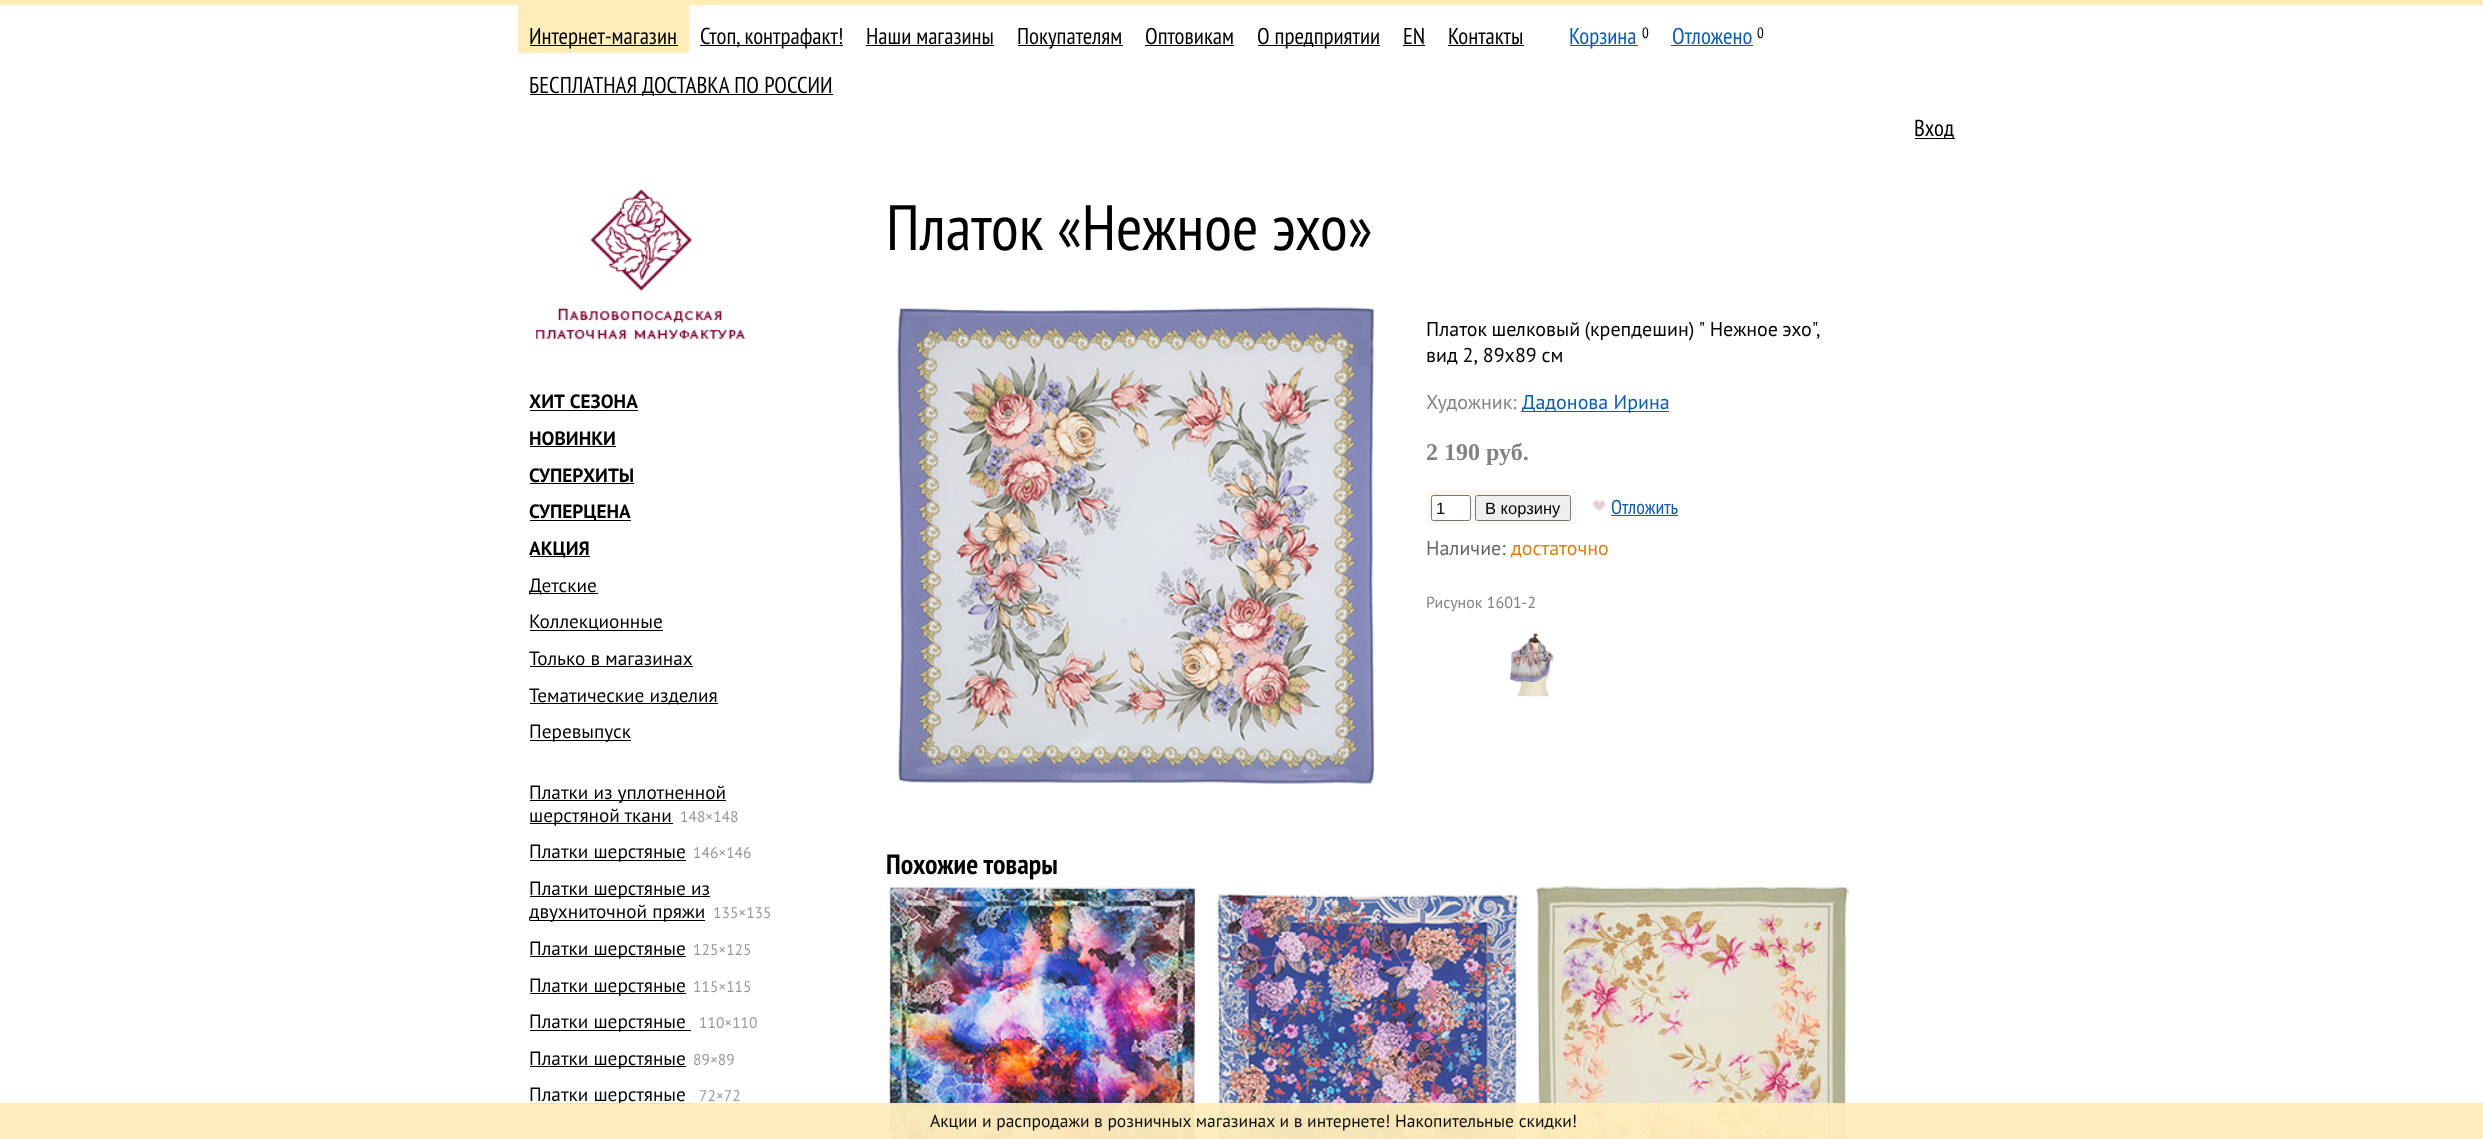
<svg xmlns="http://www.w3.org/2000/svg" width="2483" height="1139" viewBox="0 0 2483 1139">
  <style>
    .t1 { font: 23px PT Sans Narrow; fill: #000; }
    .t2 { font: 23px PT Sans Narrow; fill: #0c5caf; }
    .t3 { font: 15px PT Sans Narrow; fill: #000; }
    .t4 { font: bold 19.25px PT Sans; fill: #000; }
    .t5 { font: 19.25px PT Sans; fill: #000; }
    .t6 { font: 15.5px PT Sans; fill: #999; }
    .t7 { font: 64px PT Sans Narrow; fill: #000; }
    .t8 { font: 20px PT Sans; fill: #000; }
    .t9 { font: 20px PT Sans; fill: #838383; }
    .t10 { font: 20px PT Sans; fill: #0c5caf; }
    .t11 { font: bold 24px Liberation Serif; fill: #838383; }
    .t12 { font: 16.5px Liberation Sans; fill: #000; }
    .t13 { font: 20px PT Sans Narrow; fill: #0c5caf; }
    .t14 { font: 20px PT Sans; fill: #666; }
    .t15 { font: 20px PT Sans; fill: #d7801a; }
    .t16 { font: 16px PT Sans; fill: #838383; }
    .t17 { font: bold 28px PT Sans Narrow; fill: #000; }
    .t18 { font: 17.5px PT Sans; fill: #0c0c09; }
  </style>
  <rect width="100%" height="100%" fill="#fff"/>
  <rect x="0" y="0" width="2483" height="5" fill="#feedb9"/>
  <rect x="518" y="5" width="171" height="48" fill="#feedb9"/>
  <rect x="530" y="45" width="148" height="1" fill="#000"/>
  <text x="529" y="44" class="t1">Интернет-магазин</text>
  <rect x="700" y="45" width="143" height="1" fill="#000"/>
  <text x="700" y="44" word-spacing="-1" class="t1">Стоп, контрафакт!</text>
  <text x="866" y="44" class="t1">Наши магазины</text>
  <rect x="866" y="45" width="128" height="1" fill="#000"/>
  <rect x="1018" y="45" width="105" height="1" fill="#000"/>
  <text x="1017" y="44" class="t1">Покупателям</text>
  <text x="1145" y="44" class="t1">Оптовикам</text>
  <rect x="1145" y="45" width="89" height="1" fill="#000"/>
  <rect x="1258" y="45" width="122" height="1" fill="#000"/>
  <text x="1257" y="44" class="t1">О предприятии</text>
  <text x="1403" y="44" class="t1">EN</text>
  <rect x="1403" y="45" width="22" height="1" fill="#000"/>
  <text x="1448" y="44" class="t1">Контакты</text>
  <rect x="1448" y="45" width="76" height="1" fill="#000"/>
  <rect x="1570" y="45" width="68" height="1" fill="#0c5caf"/>
  <text x="1569" y="44" class="t2">Корзина</text>
  <text x="1642" y="38" class="t3">0</text>
  <text x="1672" y="44" class="t2">Отложено</text>
  <rect x="1671" y="45" width="82" height="1" fill="#0c5caf"/>
  <text x="1757" y="38" class="t3">0</text>
  <rect x="530" y="94" width="303" height="1" fill="#000"/>
  <text x="529" y="93" word-spacing="0.5" class="t1">БЕСПЛАТНАЯ ДОСТАВКА ПО РОССИИ</text>
  <rect x="1915" y="138" width="40" height="1" fill="#000"/>
  <text x="1914" y="136" class="t1">Вход</text>
  <image x="536" y="189" width="210" height="150" href="images/1.png"/>
  <text x="529" y="408" word-spacing="1" class="t4">ХИТ СЕЗОНА</text>
  <rect x="530" y="410" width="108" height="1" fill="#000"/>
  <text x="529" y="445" class="t4">НОВИНКИ</text>
  <rect x="530" y="446" width="86" height="1" fill="#000"/>
  <text x="529" y="482" class="t4">СУПЕРХИТЫ</text>
  <rect x="530" y="483" width="104" height="1" fill="#000"/>
  <rect x="530" y="520" width="101" height="1" fill="#000"/>
  <text x="529" y="518" class="t4">СУПЕРЦЕНА</text>
  <rect x="530" y="556" width="60" height="1" fill="#000"/>
  <text x="529" y="555" class="t4">АКЦИЯ</text>
  <rect x="530" y="593" width="68" height="1" fill="#000"/>
  <text x="529" y="592" class="t5">Детские</text>
  <rect x="530" y="630" width="133" height="1" fill="#000"/>
  <text x="529" y="628" class="t5">Коллекционные</text>
  <text x="529" y="665" class="t5">Только в магазинах</text>
  <rect x="530" y="666" width="163" height="1" fill="#000"/>
  <rect x="530" y="703" width="188" height="1" fill="#000"/>
  <text x="529" y="702" class="t5">Тематические изделия</text>
  <rect x="530" y="740" width="101" height="1" fill="#000"/>
  <text x="529" y="738" class="t5">Перевыпуск</text>
  <rect x="530" y="800" width="196" height="1" fill="#000"/>
  <text x="529" y="799" class="t5">Платки из уплотненной</text>
  <rect x="530" y="823" width="143" height="1" fill="#000"/>
  <text x="529" y="822" class="t5">шерстяной ткани</text>
  <text x="680" y="822" class="t6">148×148</text>
  <rect x="530" y="860" width="156" height="1" fill="#000"/>
  <text x="529" y="858" class="t5">Платки шерстяные</text>
  <text x="693" y="858" class="t6">146×146</text>
  <rect x="530" y="896" width="180" height="1" fill="#000"/>
  <text x="529" y="895" class="t5">Платки шерстяные из</text>
  <rect x="530" y="920" width="175" height="1" fill="#000"/>
  <text x="529" y="918" class="t5">двухниточной пряжи</text>
  <text x="713" y="918" class="t6">135×135</text>
  <rect x="530" y="956" width="156" height="1" fill="#000"/>
  <text x="529" y="955" class="t5">Платки шерстяные</text>
  <text x="693" y="955" class="t6">125×125</text>
  <rect x="530" y="993" width="156" height="1" fill="#000"/>
  <text x="529" y="992" class="t5">Платки шерстяные</text>
  <text x="693" y="992" class="t6">115×115</text>
  <rect x="530" y="1030" width="161" height="1" fill="#000"/>
  <text x="529" y="1028" class="t5">Платки шерстяные</text>
  <text x="699" y="1028" class="t6">110×110</text>
  <rect x="530" y="1066" width="156" height="1" fill="#000"/>
  <text x="529" y="1065" class="t5">Платки шерстяные</text>
  <text x="693" y="1065" class="t6">89×89</text>
  <rect x="530" y="1103" width="161" height="1" fill="#000"/>
  <text x="529" y="1101" class="t5">Платки шерстяные</text>
  <text x="699" y="1101" class="t6">72×72</text>
  <text x="886" y="250" class="t7">Платок «Нежное эхо»</text>
  <image x="896" y="307" width="479" height="479" href="images/2.png"/>
  <text x="1426" y="336" word-spacing="-1" class="t8">Платок шелковый (крепдешин) " Нежное эхо",</text>
  <text x="1426" y="362" word-spacing="-0.5" class="t8">вид 2, 89х89 см</text>
  <text x="1426" y="409" class="t9">Художник:</text>
  <rect x="1521" y="411" width="148" height="1" fill="#0c5caf"/>
  <text x="1522" y="409" class="t10">Дадонова Ирина</text>
  <text x="1426" y="460" class="t11">2 190 руб.</text>
  <rect x="1426" y="490" width="150" height="34" fill="#faf7f0"/>
  <rect x="1431.5" y="495.5" width="39" height="25" rx="2" fill="#fff" stroke="#767676"/>
  <text x="1436" y="514" class="t12">1</text>
  <rect x="1475.5" y="495.5" width="95" height="25" rx="2" fill="#efefef" stroke="#767676"/>
  <text x="1485" y="514" class="t12">В корзину</text>
  <image x="1592" y="500" width="13" height="11" href="images/3.png"/>
  <text x="1611" y="514" class="t13">Отложить</text>
  <rect x="1611" y="515" width="67" height="1" fill="#0c5caf"/>
  <text x="1426" y="555" class="t14">Наличие:</text>
  <text x="1511" y="555" class="t15">достаточно</text>
  <text x="1426" y="608" class="t16">Рисунок 1601-2</text>
  <image x="1510" y="633" width="44" height="64" href="images/4.png"/>
  <text x="886" y="874" class="t17">Похожие товары</text>
  <image x="886" y="884" width="313" height="255" href="images/5.png"/>
  <image x="1211" y="894" width="313" height="245" href="images/6.png"/>
  <image x="1536" y="884" width="313" height="255" href="images/7.png"/>
  <rect x="0" y="1103" width="2483" height="36" fill="#feedb9f2"/>
  <text x="930" y="1127" class="t18">Акции и распродажи</text>
  <text x="1094" y="1127" class="t18">в розничных магазинах и в интернете! Накопительные скидки!</text>
</svg>
